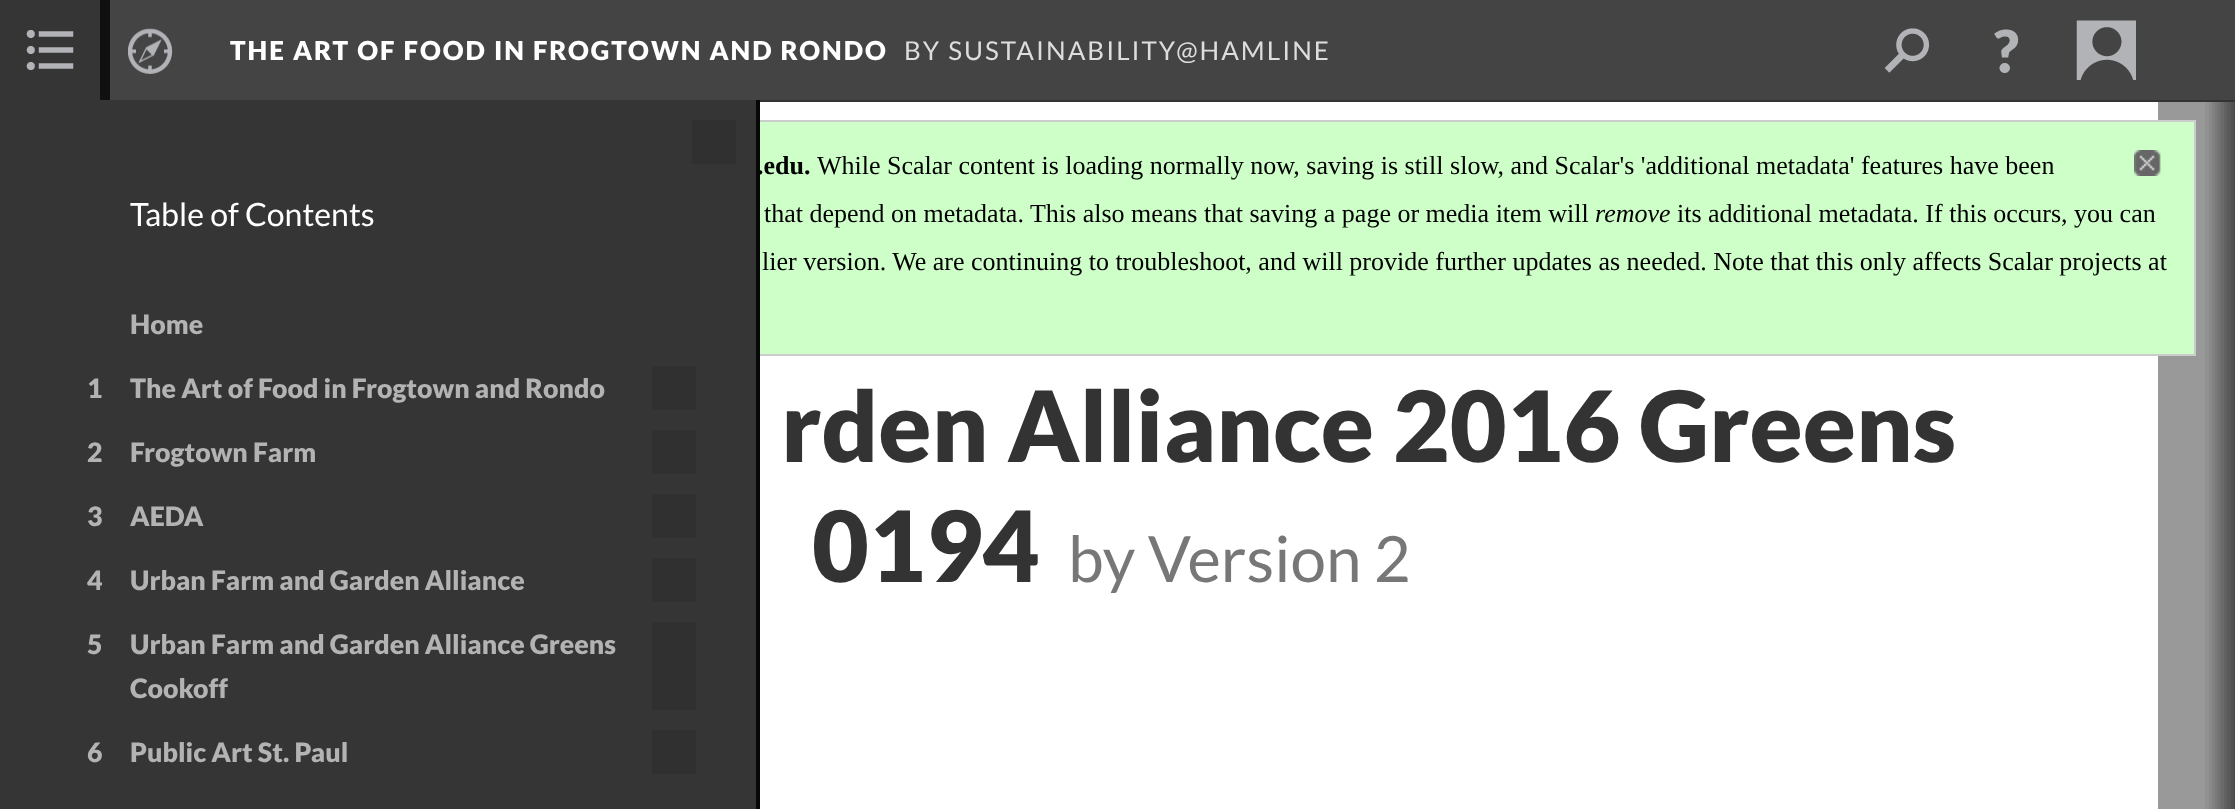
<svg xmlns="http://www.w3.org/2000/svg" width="2235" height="809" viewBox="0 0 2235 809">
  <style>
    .t1 { font: 900 26px Lato; letter-spacing: 2px; fill: #fff; }
    .t2 { font: 26px Lato; letter-spacing: 2px; fill: #dddddf; }
    .t3 { font: bold 26px Liberation Serif; fill: #000; }
    .t4 { font: 32px Lato; fill: #fff; }
    .t5 { font: 900 26.7px Lato; fill: #b3b3b3; }
    .t6 { font: 26px Liberation Serif; fill: #000; }
    .t7 { font: italic 26px Liberation Serif; fill: #000; }
    .t8 { font: 900 98px Lato; fill: #333; }
    .t9 { font: 63.75px Lato; fill: #777; }
  </style>
  <rect width="100%" height="100%" fill="#000"/>
  <rect x="110" y="0" width="2125" height="100" fill="#444"/>
  <rect x="760" y="100" width="1475" height="2" fill="#333"/>
  <text x="230" y="60" class="t1">THE ART OF FOOD IN FROGTOWN AND RONDO</text>
  <text x="904" y="60" class="t2">BY SUSTAINABILITY@HAMLINE</text>
  <image x="1884" y="28" width="45" height="45" href="images/1.png"/>
  <image x="1994" y="29" width="25" height="44" href="images/2.png"/>
  <image x="2076" y="20" width="60" height="60" href="images/3.png"/>
  <image x="128" y="28" width="45" height="46" href="images/4.png"/>
  <rect x="0" y="0" width="100" height="100" fill="#353535"/>
  <image x="26" y="30" width="48" height="40" href="images/5.png"/>
  <rect x="-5" y="-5" width="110" height="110" fill="none" stroke="#101010" stroke-width="10"/>
  <rect x="760" y="102" width="1398" height="707" fill="#fff"/>
  <image x="2158" y="102" width="77" height="707" href="images/7.png"/>
  <rect x="760" y="122" width="1434" height="232" fill="#ceffc8"/>
  <rect x="21" y="121" width="2174" height="234" fill="none" stroke="#ccc" stroke-width="2"/>
  <rect x="0" y="100" width="756" height="709" fill="#353535"/>
  <text x="757" y="174" class="t3">.edu.</text>
  <rect x="756" y="100" width="4" height="709" fill="#070707"/>
  <rect x="692" y="120" width="44" height="44" fill="#303030"/>
  <text x="130" y="226" class="t4">Table of Contents</text>
  <text x="130" y="334" class="t5">Home</text>
  <text x="87" y="398" class="t5">1</text>
  <text x="130" y="398" class="t5">The Art of Food in Frogtown and Rondo</text>
  <rect x="652" y="366" width="44" height="44" fill="#303030"/>
  <text x="87" y="462" class="t5">2</text>
  <text x="130" y="462" class="t5">Frogtown Farm</text>
  <rect x="652" y="430" width="44" height="44" fill="#303030"/>
  <text x="87" y="526" class="t5">3</text>
  <text x="130" y="526" class="t5">AEDA</text>
  <rect x="652" y="494" width="44" height="44" fill="#303030"/>
  <text x="87" y="590" class="t5">4</text>
  <text x="130" y="590" class="t5">Urban Farm and Garden Alliance</text>
  <rect x="652" y="558" width="44" height="44" fill="#303030"/>
  <text x="87" y="654" class="t5">5</text>
  <text x="130" y="654" class="t5">Urban Farm and Garden Alliance Greens</text>
  <text x="130" y="698" class="t5">Cookoff</text>
  <rect x="652" y="622" width="44" height="88" fill="#303030"/>
  <text x="87" y="762" class="t5">6</text>
  <text x="130" y="762" class="t5">Public Art St. Paul</text>
  <rect x="652" y="730" width="44" height="44" fill="#303030"/>
  <text x="817" y="174" class="t6">While Scalar content is loading normally now, saving is still slow, and Scalar's 'additional metadata' features have been</text>
  <image x="2134" y="150" width="27" height="26" href="images/6.png"/>
  <text x="764" y="222" class="t6">that depend on metadata. This also means that saving a page or media item will</text>
  <text x="1595" y="222" class="t7">remove</text>
  <text x="1677" y="222" class="t6">its additional metadata. If this occurs, you can</text>
  <text x="762" y="270" class="t6">lier version. We are continuing to troubleshoot, and will provide further updates as needed. Note that this only affects Scalar projects at</text>
  <text x="781" y="462" class="t8">rden Alliance 2016 Greens</text>
  <text x="812" y="582" class="t8">0194</text>
  <text x="1068" y="582" class="t9">by Version 2</text>
</svg>
